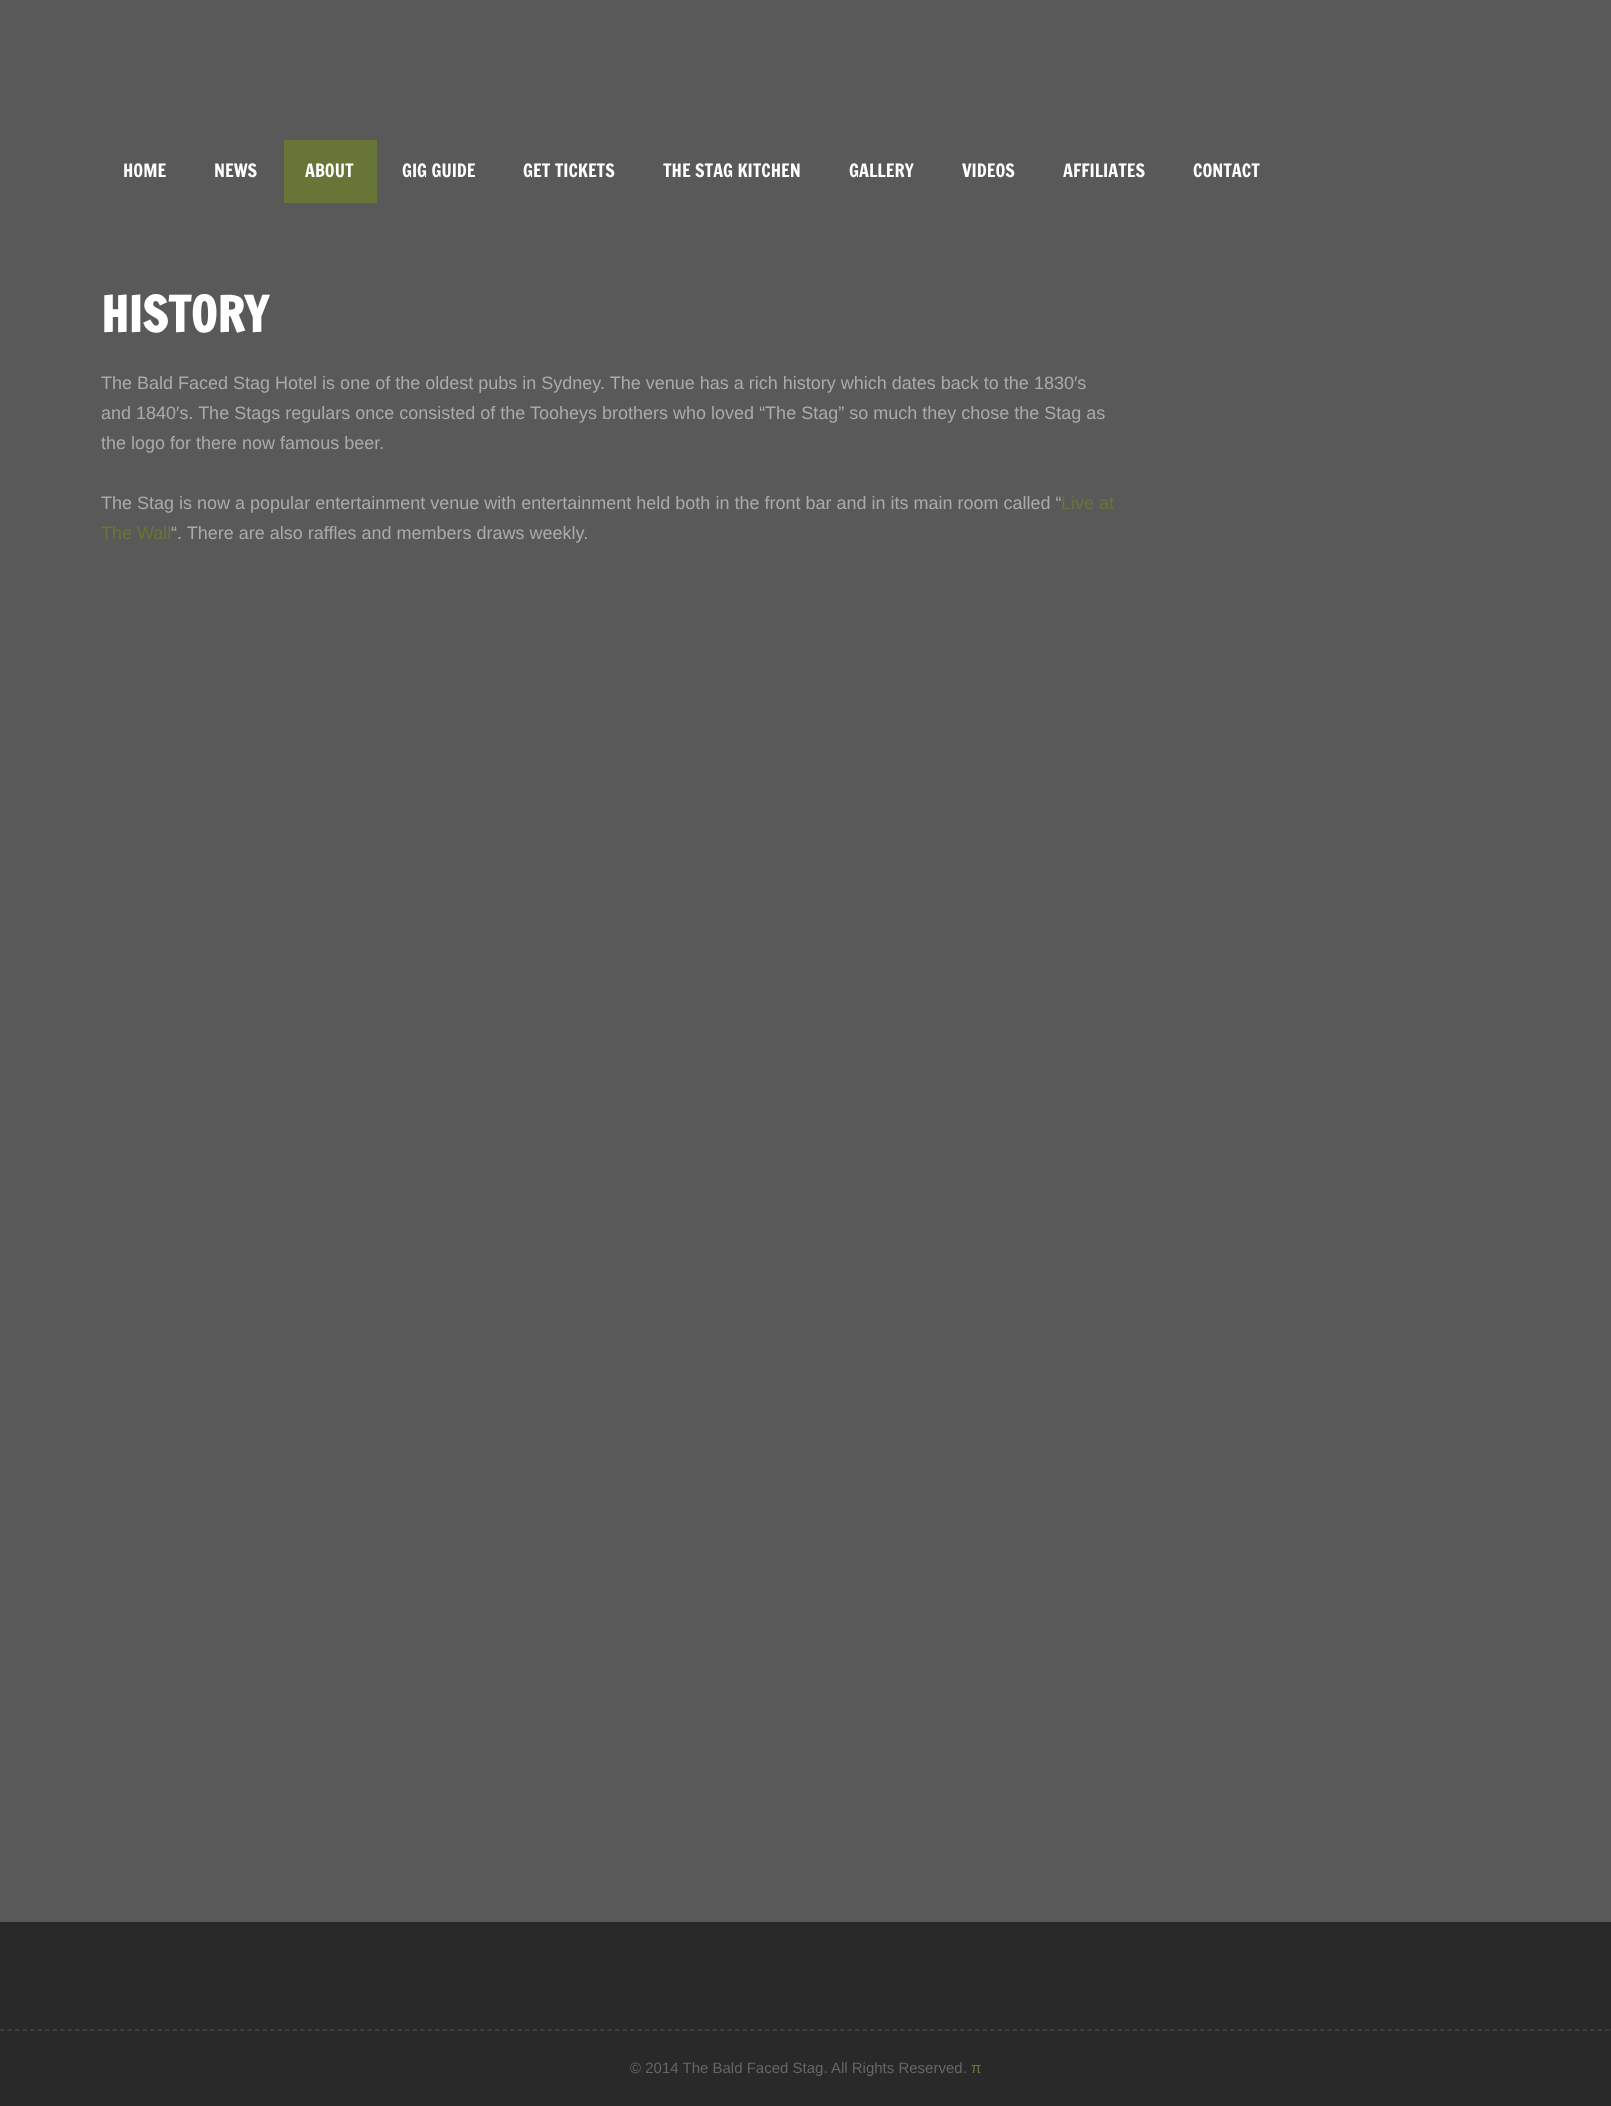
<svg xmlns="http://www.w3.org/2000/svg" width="1611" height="2106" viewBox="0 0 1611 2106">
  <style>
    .t1 { font: 18px Francois One; fill: #fff; }
    .t2 { font: bold 48px Francois One; fill: #fff; }
    .t3 { font: 18px Liberation Sans; fill: #aaa; }
    .t4 { font: 18px Liberation Sans; fill: #677536; }
    .t5 { font: 15px Liberation Sans; fill: #666; }
    .t6 { font: 15px Liberation Sans; fill: #677536; }
  </style>
  <rect width="100%" height="100%" fill="#595959"/>
  <text x="123" y="177" class="t1">HOME</text>
  <text x="214" y="177" class="t1">NEWS</text>
  <rect x="284" y="140" width="93" height="63" fill="#677536"/>
  <text x="305" y="177" class="t1">ABOUT</text>
  <text x="402" y="177" class="t1">GIG GUIDE</text>
  <text x="523" y="177" class="t1">GET TICKETS</text>
  <text x="663" y="177" class="t1">THE STAG KITCHEN</text>
  <text x="849" y="177" class="t1">GALLERY</text>
  <text x="962" y="177" class="t1">VIDEOS</text>
  <text x="1063" y="177" class="t1">AFFILIATES</text>
  <text x="1193" y="177" class="t1">CONTACT</text>
  <text x="101" y="332" class="t2">HISTORY</text>
  <text x="101" y="389" class="t3">The Bald Faced Stag Hotel is one of the oldest pubs in Sydney. The venue has a rich history which dates back to the 1830′s</text>
  <text x="101" y="419" class="t3">and 1840′s. The Stags regulars once consisted of the Tooheys brothers who loved “The Stag” so much they chose the Stag as</text>
  <text x="101" y="449" class="t3">the logo for there now famous beer.</text>
  <text x="101" y="509" class="t3">The Stag is now a popular entertainment venue with entertainment held both in the front bar and in its main room called “</text>
  <text x="1061" y="509" class="t4">Live at</text>
  <text x="101" y="539" class="t4">The Wall</text>
  <text x="171" y="539" class="t3">“. There are also raffles and members draws weekly.</text>
  <rect x="0" y="1922" width="1611" height="184" fill="#292929"/>
  <path d="M0 2030H1611" fill="none" stroke="#444" stroke-width="1.5" stroke-dasharray="4.5 3"/>
  <text x="630" y="2073" class="t5">© 2014 The Bald Faced Stag. All Rights Reserved.</text>
  <text x="971" y="2073" class="t6">π</text>
</svg>
